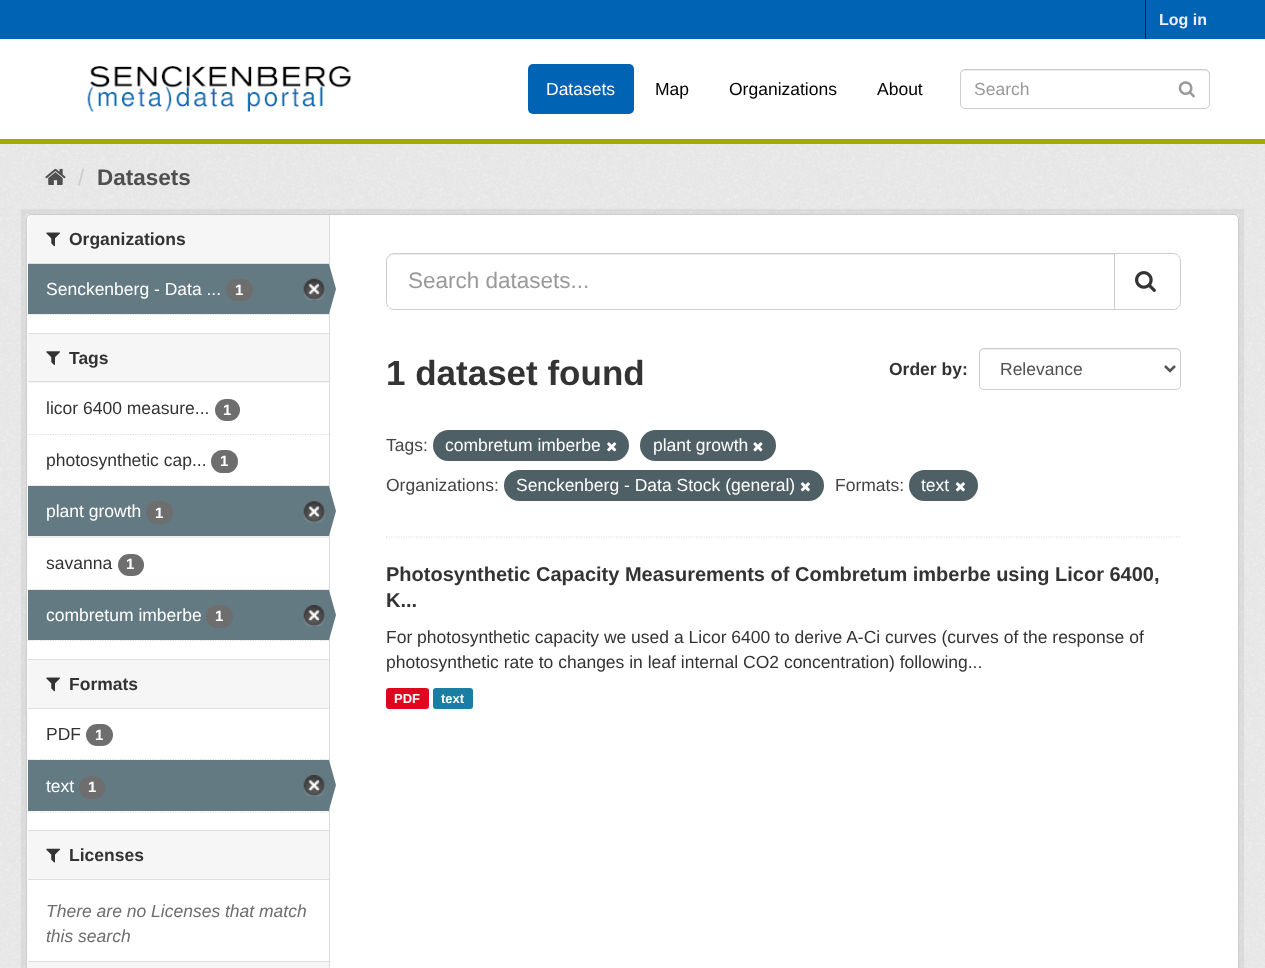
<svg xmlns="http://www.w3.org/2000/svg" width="1265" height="968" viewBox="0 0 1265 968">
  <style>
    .t1 { font: bold 16px Liberation Sans; fill: #eef; }
    .t2 { font: 17.5px Liberation Sans; fill: #fff; }
    .t3 { font: 17.5px Liberation Sans; fill: #000; }
    .t4 { font: 17.5px Liberation Sans; fill: #999; }
    .t5 { font: 22.5px Liberation Sans; fill: #ccc; }
    .t6 { font: bold 22.5px Liberation Sans; fill: #505050; }
    .t7 { font: bold 17.5px Liberation Sans; fill: #333; }
    .t8 { font: bold 15px Liberation Sans; fill: #fff; }
    .t9 { font: 17.5px Liberation Sans; fill: #333; }
    .t10 { font: italic 17.5px Liberation Sans; fill: #6e6e6e; }
    .t11 { font: 22.5px Liberation Sans; fill: #999; }
    .t12 { font: bold 35px Liberation Sans; fill: #333; }
    .t13 { font: 17.5px Liberation Sans; fill: #505050; }
    .t14 { font: 17.5px Liberation Sans; fill: #444; }
    .t15 { font: bold 20px Liberation Sans; fill: #333; }
    .t16 { font: bold 13px Liberation Sans; fill: #fff; }
  </style>
  <rect width="100%" height="100%" fill="#fff"/>
  <rect x="0" y="0" width="1265" height="39" fill="#0063b4"/>
  <rect x="1145" y="0" width="1" height="39" fill="#00232e"/>
  <text x="1159" y="25" class="t1">Log in</text>
  <rect x="0" y="139" width="1265" height="5" fill="#a4aa00"/>
  <image x="87" y="66" width="265" height="47" href="images/1.png"/>
  <rect x="528" y="64" width="106" height="50" rx="5" fill="#0063b4"/>
  <text x="546" y="95" class="t2">Datasets</text>
  <text x="655" y="95" class="t3">Map</text>
  <text x="729" y="95" class="t3">Organizations</text>
  <text x="877" y="95" class="t3">About</text>
  <path d="M965 71H1205C1207 71 1209 73 1209 75V74C1209 72 1207 70 1205 70H965C963 70 961 72 961 74V75C961 73 963 71 965 71Z" fill="#ececec"/>
  <rect x="960.5" y="69.5" width="249" height="39" rx="4.5" fill="none" stroke="#ccc"/>
  <text x="974" y="95" class="t4">Search</text>
  <image x="1178" y="81" width="17" height="17" href="images/2.png"/>
  <rect x="0" y="144" width="1265" height="824" fill="#eee"/>
  <image x="0" y="144" width="1265" height="824" href="images/3.png"/>
  <image x="45" y="168" width="21" height="17" href="images/4.png"/>
  <text x="78" y="185" class="t5">/</text>
  <text x="97" y="185" class="t6">Datasets</text>
  <rect x="23.5" y="211.5" width="1218" height="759" fill="none" stroke="#0000000d" stroke-width="5"/>
  <rect x="26.5" y="214.5" width="1212" height="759" rx="4.5" fill="#fff" stroke="#ccc"/>
  <path d="M32 215H329V264H28V219C28 217 30 215 32 215Z" fill="#f6f6f6"/>
  <rect x="28" y="263" width="301" height="1" fill="#ddd"/>
  <image x="46" y="232" width="14" height="15" href="images/5.png"/>
  <text x="69" y="245" class="t7">Organizations</text>
  <path d="M27.5 314.5H329" fill="none" stroke="#ddd" stroke-width="1.2" stroke-dasharray="1.25 1.25"/>
  <rect x="28" y="264" width="301" height="50" fill="#647a82"/>
  <text x="46" y="295" class="t2">Senckenberg - Data ...</text>
  <rect x="226" y="279" width="27" height="22" rx="11" fill="#6e6e6e"/>
  <text x="235" y="295" class="t8">1</text>
  <image x="303" y="278" width="22" height="22" href="images/6.png"/>
  <rect x="329" y="215" width="1" height="753" fill="#ddd"/>
  <path d="M329 314V264L336 289Z" fill="#647a82"/>
  <rect x="28" y="334" width="301" height="49" fill="#f6f6f6"/>
  <rect x="28" y="333" width="301" height="1" fill="#ddd"/>
  <rect x="28" y="381" width="301" height="1" fill="#ddd"/>
  <image x="46" y="351" width="14" height="14" href="images/7.png"/>
  <text x="69" y="364" class="t7">Tags</text>
  <path d="M27.5 434.5H329" fill="none" stroke="#ddd" stroke-width="1.2" stroke-dasharray="1.25 1.25"/>
  <text x="46" y="414" class="t9">licor 6400 measure...</text>
  <rect x="215" y="399" width="25" height="22" rx="11" fill="#6e6e6e"/>
  <text x="223" y="415" class="t8">1</text>
  <path d="M27.5 485.5H329" fill="none" stroke="#ddd" stroke-width="1.2" stroke-dasharray="1.25 1.25"/>
  <text x="46" y="466" class="t9">photosynthetic cap...</text>
  <rect x="211" y="450" width="27" height="23" rx="11.5" fill="#6e6e6e"/>
  <text x="220" y="466" class="t8">1</text>
  <rect x="28" y="536" width="301" height="2" fill="#f6f6f6"/>
  <path d="M27.5 537H329" fill="none" stroke="#ddd" stroke-width="1.2" stroke-dasharray="1.25 1.25"/>
  <rect x="28" y="486" width="301" height="50" fill="#647a82"/>
  <text x="46" y="517" class="t2">plant growth</text>
  <rect x="146" y="501" width="27" height="23" rx="11.5" fill="#6e6e6e"/>
  <text x="155" y="518" class="t8">1</text>
  <image x="303" y="501" width="22" height="22" href="images/8.png"/>
  <path d="M329 536V486L336 511Z" fill="#647a82"/>
  <path d="M27.5 589.5H329" fill="none" stroke="#ddd" stroke-width="1.2" stroke-dasharray="1.25 1.25"/>
  <text x="46" y="569" class="t9">savanna</text>
  <rect x="118" y="554" width="26" height="22" rx="11" fill="#6e6e6e"/>
  <text x="126" y="569" class="t8">1</text>
  <path d="M27.5 640.5H329" fill="none" stroke="#ddd" stroke-width="1.2" stroke-dasharray="1.25 1.25"/>
  <rect x="28" y="590" width="301" height="50" fill="#647a82"/>
  <text x="46" y="621" class="t2">combretum imberbe</text>
  <rect x="206" y="605" width="27" height="23" rx="11.5" fill="#6e6e6e"/>
  <text x="215" y="621" class="t8">1</text>
  <image x="303" y="605" width="22" height="22" href="images/9.png"/>
  <path d="M329 640V590L336 615Z" fill="#647a82"/>
  <rect x="28" y="660" width="301" height="48" fill="#f6f6f6"/>
  <rect x="28" y="659" width="301" height="1" fill="#ddd"/>
  <rect x="28" y="708" width="301" height="1" fill="#ddd"/>
  <image x="46" y="677" width="14" height="15" href="images/5.png"/>
  <text x="69" y="690" class="t7">Formats</text>
  <path d="M27.5 759.5H329" fill="none" stroke="#ddd" stroke-width="1.2" stroke-dasharray="1.25 1.25"/>
  <text x="46" y="740" class="t9">PDF</text>
  <rect x="86" y="724" width="27" height="22" rx="11" fill="#6e6e6e"/>
  <text x="95" y="740" class="t8">1</text>
  <rect x="28" y="760" width="301" height="51" fill="#647a82"/>
  <text x="46" y="792" class="t2">text</text>
  <rect x="79" y="776" width="26" height="23" rx="11.5" fill="#6e6e6e"/>
  <text x="88" y="792" class="t8">1</text>
  <image x="303" y="775" width="22" height="22" href="images/10.png"/>
  <path d="M329 810V760L336 785Z" fill="#647a82"/>
  <path d="M27.5 812H329" fill="none" stroke="#ddd" stroke-width="1.2" stroke-dasharray="1.25 1.25"/>
  <rect x="28" y="831" width="301" height="48" fill="#f6f6f6"/>
  <rect x="28" y="830" width="301" height="1" fill="#ddd"/>
  <rect x="28" y="879" width="301" height="1" fill="#ddd"/>
  <image x="46" y="848" width="14" height="15" href="images/11.png"/>
  <text x="69" y="861" class="t7">Licenses</text>
  <text x="46" y="917" class="t10">There are no Licenses that match</text>
  <text x="46" y="942" class="t10">this search</text>
  <rect x="28" y="962" width="301" height="6" fill="#f6f6f6"/>
  <rect x="28" y="961" width="301" height="1" fill="#ddd"/>
  <path d="M386 537H1181" fill="none" stroke="#ddd" stroke-width="1.2" stroke-dasharray="1.25 1.25"/>
  <path d="M394 255H1114V254H394C390 254 388 257 388 261C388 258 390 255 394 255Z" fill="#ececec"/>
  <path d="M394 253.5H1114.5V309.5H394C390 309.5 386.5 306 386.5 302V261C386.5 257 390 253.5 394 253.5Z" fill="none" stroke="#ccc"/>
  <text x="408" y="288" class="t11">Search datasets...</text>
  <path d="M1114.5 253.5H1173C1177 253.5 1180.5 257 1180.5 261V302C1180.5 306 1177 309.5 1173 309.5H1114.5Z" fill="#fff" stroke="#ccc"/>
  <image x="1135" y="271" width="21" height="21" href="images/12.png"/>
  <text x="386" y="385" class="t12">1 dataset found</text>
  <text x="889" y="375" class="t7">Order by:</text>
  <path d="M984 350H1176C1178 350 1180 352 1180 354V353C1180 351 1178 349 1176 349H984C982 349 980 351 980 353V354C980 352 982 350 984 350Z" fill="#ececec"/>
  <rect x="979.5" y="348.5" width="201" height="41" rx="4.5" fill="none" stroke="#ccc"/>
  <path d="M1165 366L1170 371L1175 366" fill="none" stroke="#555" stroke-width="2.5"/>
  <text x="1000" y="375" class="t13">Relevance</text>
  <text x="386" y="451" class="t14">Tags:</text>
  <rect x="433" y="430" width="196" height="31" rx="15.5" fill="#4e5f65"/>
  <text x="445" y="451" class="t2">combretum imberbe</text>
  <image x="607" y="442" width="10" height="10" href="images/13.png"/>
  <rect x="640" y="430" width="136" height="31" rx="15.5" fill="#4e5f65"/>
  <text x="653" y="451" class="t2">plant growth</text>
  <image x="753" y="442" width="10" height="10" href="images/14.png"/>
  <text x="386" y="491" class="t14">Organizations:</text>
  <rect x="504" y="470" width="320" height="31" rx="15.5" fill="#4e5f65"/>
  <text x="516" y="491" class="t2">Senckenberg - Data Stock (general)</text>
  <image x="800" y="482" width="10" height="10" href="images/15.png"/>
  <text x="835" y="491" class="t14">Formats:</text>
  <rect x="909" y="470" width="69" height="31" rx="15.5" fill="#4e5f65"/>
  <text x="921" y="491" class="t2">text</text>
  <image x="955" y="482" width="10" height="10" href="images/15.png"/>
  <text x="386" y="581" class="t15">Photosynthetic Capacity Measurements of Combretum imberbe using Licor 6400,</text>
  <text x="386" y="607" class="t15">K...</text>
  <text x="386" y="643" class="t9">For photosynthetic capacity we used a Licor 6400 to derive A-Ci curves (curves of the response of</text>
  <text x="386" y="668" class="t9">photosynthetic rate to changes in leaf internal CO2 concentration) following...</text>
  <rect x="386" y="688" width="43" height="21" rx="3" fill="#e0051e"/>
  <text x="394" y="703" class="t16">PDF</text>
  <rect x="433" y="688" width="40" height="21" rx="3" fill="#1a7ea3"/>
  <text x="441" y="703" class="t16">text</text>
</svg>
